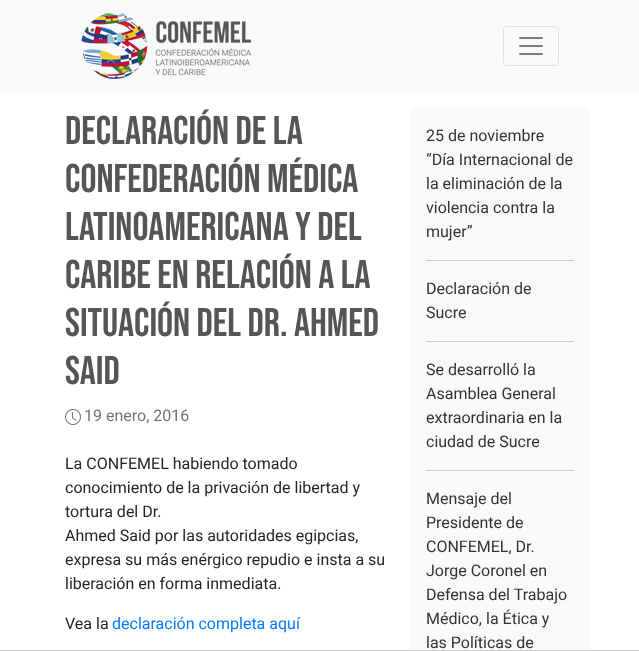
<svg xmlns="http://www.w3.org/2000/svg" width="639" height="651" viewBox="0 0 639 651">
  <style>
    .t1 { font: 40px Bebas Neue; fill: #555; }
    .t2 { font: 16px Roboto; fill: #6c757d; }
    .t3 { font: 16px Roboto; fill: #212529; }
    .t4 { font: 16px Roboto; fill: #007bff; }
    .t5 { font: 16px Roboto; fill: #333; }
  </style>
  <rect width="100%" height="100%" fill="#fff"/>
  <rect x="0" y="0" width="639" height="92" fill="#f8f9fa"/>
  <image x="81" y="13" width="170" height="66" href="images/1.png"/>
  <rect x="503.5" y="26.5" width="55" height="39" rx="3.5" fill="none" stroke="#dfe0e1"/>
  <image x="519" y="37" width="24" height="18" href="images/2.png"/>
  <text x="65" y="144" class="t1">Declaración de la</text>
  <text x="65" y="192" class="t1">Confederación Médica</text>
  <text x="65" y="240" class="t1">Latinoamericana y del</text>
  <text x="65" y="288" class="t1">Caribe en relación a la</text>
  <text x="65" y="336" class="t1">situación del Dr. Ahmed</text>
  <text x="65" y="384" class="t1">Said</text>
  <image x="65" y="409" width="16" height="16" href="images/3.png"/>
  <text x="84" y="421" class="t2">19 enero, 2016</text>
  <text x="65" y="469" class="t3">La CONFEMEL habiendo tomado</text>
  <text x="65" y="493" class="t3">conocimiento de la privación de libertad y</text>
  <text x="65" y="517" class="t3">tortura del Dr.</text>
  <text x="65" y="541" class="t3">Ahmed Said por las autoridades egipcias,</text>
  <text x="65" y="565" class="t3">expresa su más enérgico repudio e insta a su</text>
  <text x="65" y="589" class="t3">liberación en forma inmediata.</text>
  <text x="65" y="629" class="t3">Vea la</text>
  <text x="112" y="629" class="t4">declaración completa aquí</text>
  <rect x="410" y="108" width="180" height="542" fill="#f8f9fa"/>
  <rect x="426" y="260" width="148" height="1" fill="#ccc"/>
  <text x="426" y="141" class="t5">25 de noviembre</text>
  <text x="426" y="165" class="t5">“Día Internacional de</text>
  <text x="426" y="189" class="t5">la eliminación de la</text>
  <text x="426" y="213" class="t5">violencia contra la</text>
  <text x="426" y="237" class="t5">mujer”</text>
  <rect x="426" y="341" width="148" height="1" fill="#ccc"/>
  <text x="426" y="294" class="t5">Declaración de</text>
  <text x="426" y="318" class="t5">Sucre</text>
  <rect x="426" y="470" width="148" height="1" fill="#ccc"/>
  <text x="426" y="375" class="t5">Se desarrolló la</text>
  <text x="426" y="399" class="t5">Asamblea General</text>
  <text x="426" y="423" class="t5">extraordinaria en la</text>
  <text x="426" y="447" class="t5">ciudad de Sucre</text>
  <text x="426" y="504" class="t5">Mensaje del</text>
  <text x="426" y="528" class="t5">Presidente de</text>
  <text x="426" y="552" class="t5">CONFEMEL, Dr.</text>
  <text x="426" y="576" class="t5">Jorge Coronel en</text>
  <text x="426" y="600" class="t5">Defensa del Trabajo</text>
  <text x="426" y="624" class="t5">Médico, la Ética y</text>
  <text x="426" y="648" class="t5">las Políticas de</text>
  <rect x="0" y="650" width="639" height="1" fill="#ccc"/>
</svg>
